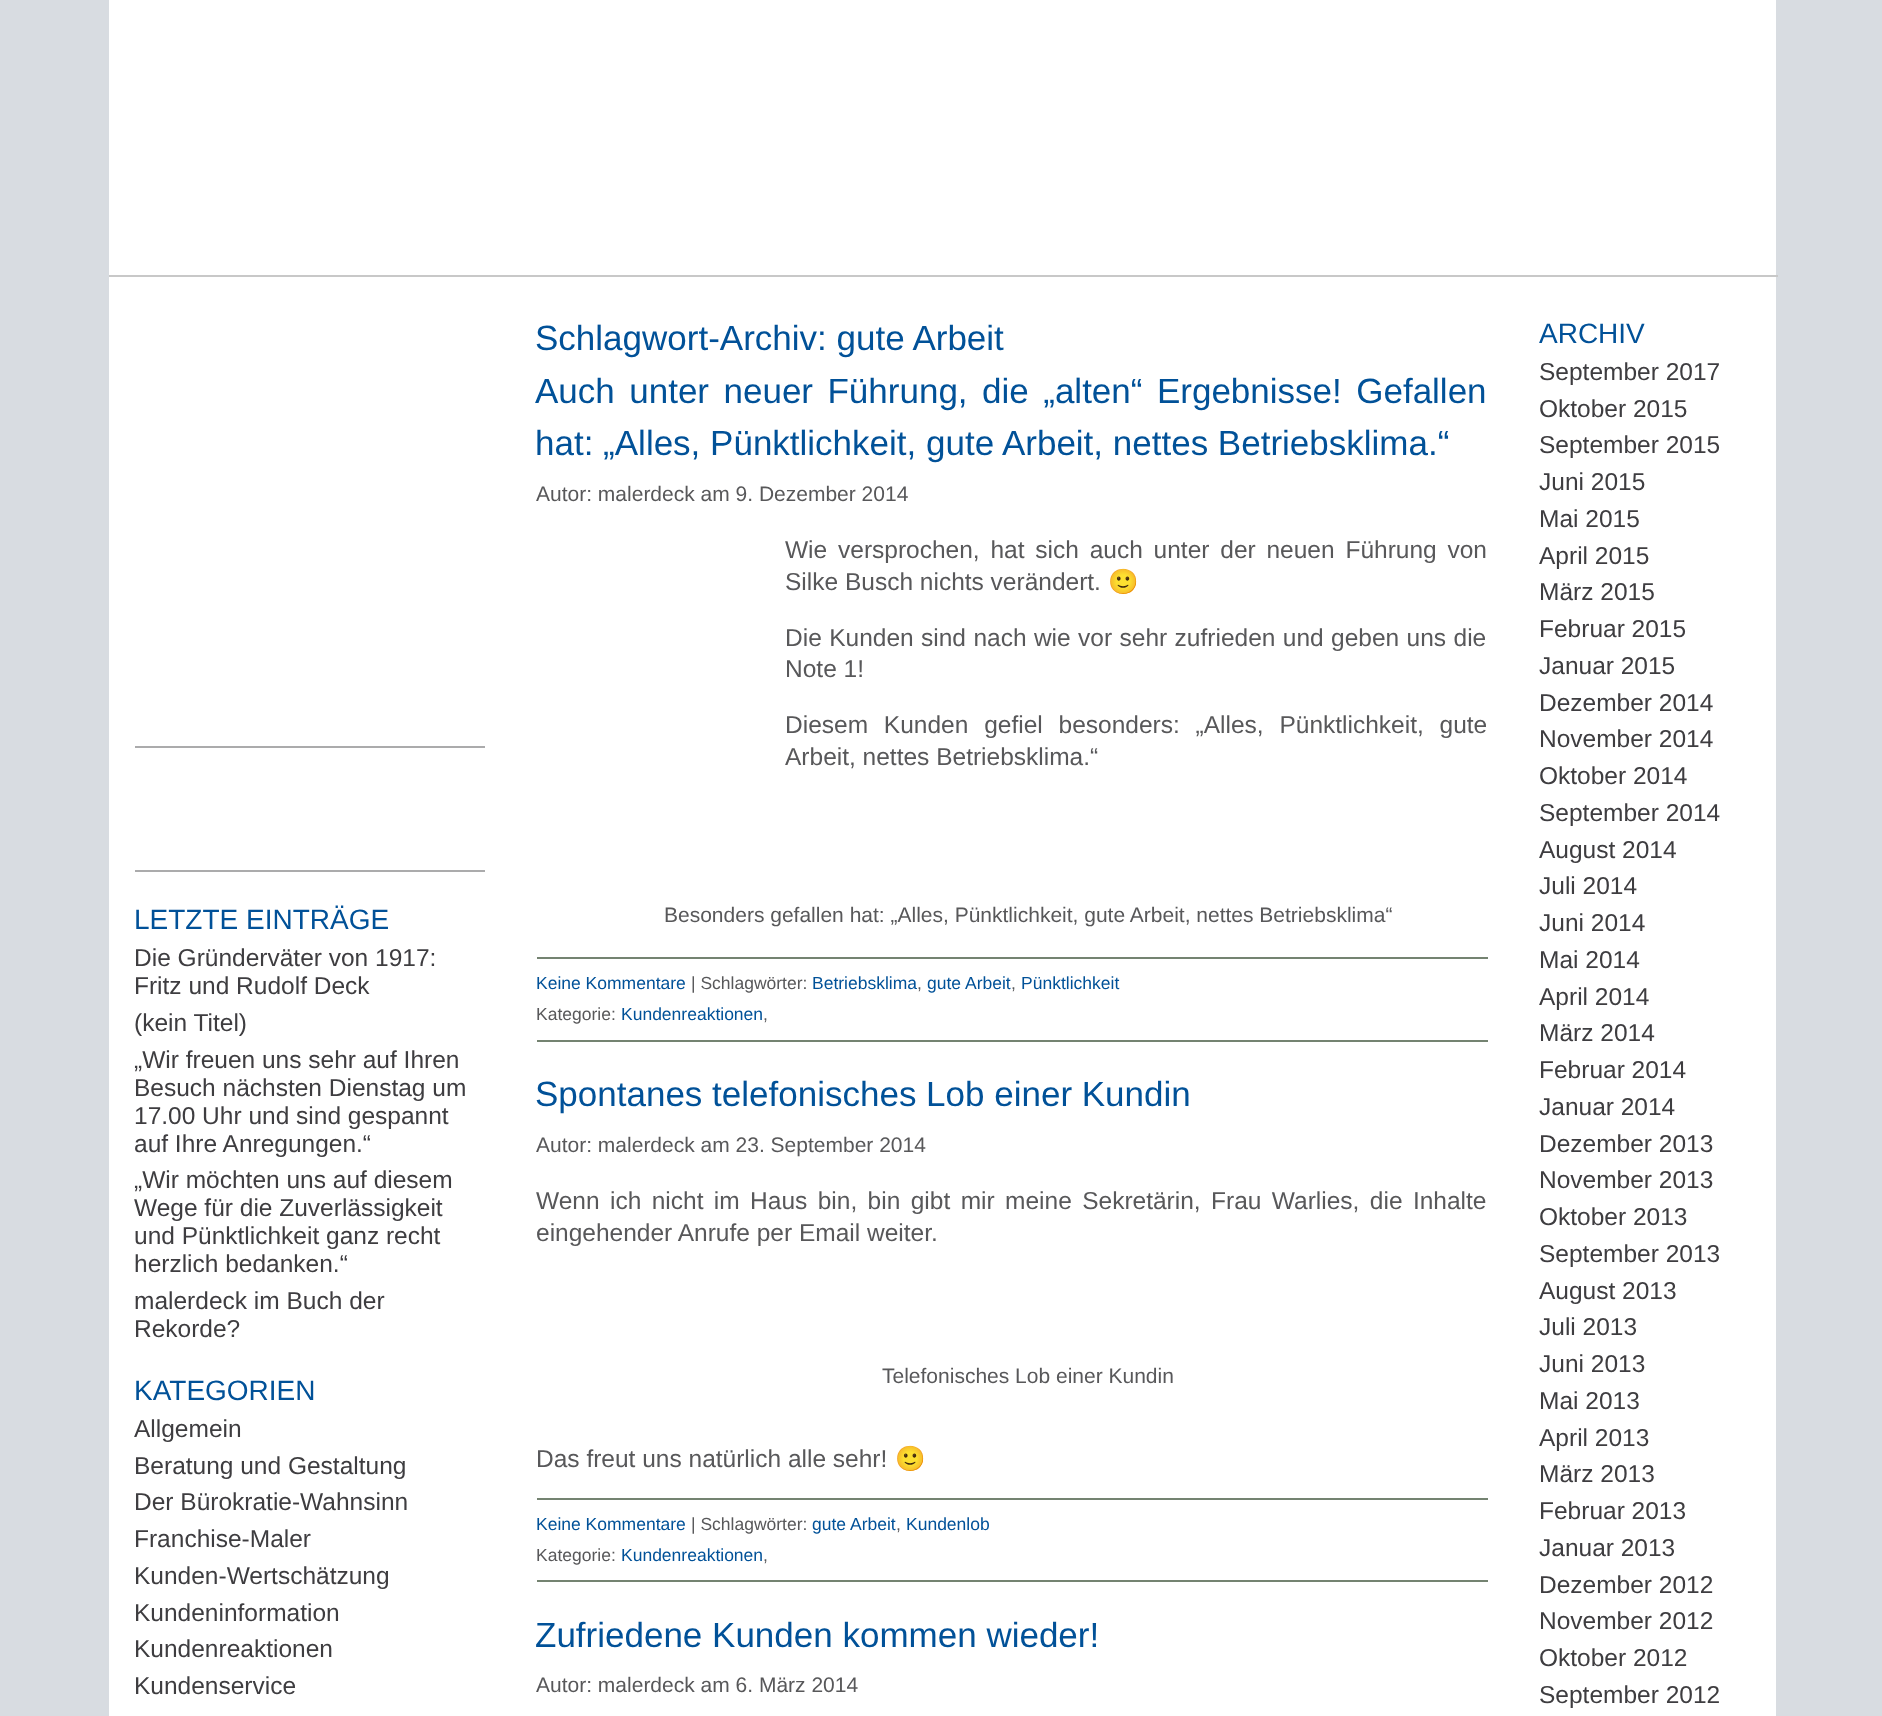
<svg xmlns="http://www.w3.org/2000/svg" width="1882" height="1716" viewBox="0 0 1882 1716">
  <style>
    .t1 { font: 28px Liberation Sans; fill: #015198; }
    .t2 { font: 24.5px Liberation Sans; fill: #3e3d40; }
    .t3 { font: 35px Liberation Sans; fill: #015198; }
    .t4 { font: 21px Liberation Sans; fill: #58585a; }
    .t5 { font: 24.5px Liberation Sans; fill: #58585a; }
    .t6 { font: 24.5px Noto Color Emoji; fill: #58585a; }
    .t7 { font: 17.5px Liberation Sans; fill: #015198; }
    .t8 { font: 17.5px Liberation Sans; fill: #58585a; }
  </style>
  <rect width="100%" height="100%" fill="#d8dce1"/>
  <rect x="109" y="0" width="1667" height="1716" fill="#fff"/>
  <rect x="109" y="275" width="1669" height="2" fill="#c8c8c8"/>
  <rect x="135" y="746" width="350" height="2" fill="#ababac"/>
  <rect x="135" y="870" width="350" height="2" fill="#ababac"/>
  <text x="134" y="929" class="t1">LETZTE EINTRÄGE</text>
  <text x="134" y="966" class="t2">Die Gründerväter von 1917:</text>
  <text x="134" y="994" class="t2">Fritz und Rudolf Deck</text>
  <text x="134" y="1031" class="t2">(kein Titel)</text>
  <text x="134" y="1068" class="t2">„Wir freuen uns sehr auf Ihren</text>
  <text x="134" y="1096" class="t2">Besuch nächsten Dienstag um</text>
  <text x="134" y="1124" class="t2">17.00 Uhr und sind gespannt</text>
  <text x="134" y="1152" class="t2">auf Ihre Anregungen.“</text>
  <text x="134" y="1188" class="t2">„Wir möchten uns auf diesem</text>
  <text x="134" y="1216" class="t2">Wege für die Zuverlässigkeit</text>
  <text x="134" y="1244" class="t2">und Pünktlichkeit ganz recht</text>
  <text x="134" y="1272" class="t2">herzlich bedanken.“</text>
  <text x="134" y="1309" class="t2">malerdeck im Buch der</text>
  <text x="134" y="1337" class="t2">Rekorde?</text>
  <text x="134" y="1400" class="t1">KATEGORIEN</text>
  <text x="134" y="1437" class="t2">Allgemein</text>
  <text x="134" y="1474" class="t2">Beratung und Gestaltung</text>
  <text x="134" y="1510" class="t2">Der Bürokratie-Wahnsinn</text>
  <text x="134" y="1547" class="t2">Franchise-Maler</text>
  <text x="134" y="1584" class="t2">Kunden-Wertschätzung</text>
  <text x="134" y="1621" class="t2">Kundeninformation</text>
  <text x="134" y="1657" class="t2">Kundenreaktionen</text>
  <text x="134" y="1694" class="t2">Kundenservice</text>
  <text x="535" y="350" class="t3">Schlagwort-Archiv: gute Arbeit</text>
  <text x="535" y="403" word-spacing="4.75" class="t3">Auch unter neuer Führung, die „alten“ Ergebnisse! Gefallen</text>
  <text x="535" y="455" class="t3">hat: „Alles, Pünktlichkeit, gute Arbeit, nettes Betriebsklima.“</text>
  <text x="536" y="501" class="t4">Autor: malerdeck am 9. Dezember 2014</text>
  <text x="785" y="558" word-spacing="4" class="t5">Wie versprochen, hat sich auch unter der neuen Führung von</text>
  <text x="785" y="590" class="t5">Silke Busch nichts verändert.</text>
  <text x="1108" y="590" class="t6">🙂</text>
  <text x="785" y="646" word-spacing="0.6" class="t5">Die Kunden sind nach wie vor sehr zufrieden und geben uns die</text>
  <text x="785" y="677" class="t5">Note 1!</text>
  <text x="785" y="733" word-spacing="9" class="t5">Diesem Kunden gefiel besonders: „Alles, Pünktlichkeit, gute</text>
  <text x="785" y="765" class="t5">Arbeit, nettes Betriebsklima.“</text>
  <text x="664" y="922" class="t4">Besonders gefallen hat: „Alles, Pünktlichkeit, gute Arbeit, nettes Betriebsklima“</text>
  <rect x="537" y="957" width="951" height="2" fill="#748371"/>
  <rect x="537" y="1040" width="951" height="2" fill="#748371"/>
  <text x="536" y="989" class="t7">Keine Kommentare</text>
  <text x="691" y="989" class="t8">| Schlagwörter:</text>
  <text x="812" y="989" class="t7">Betriebsklima</text>
  <text x="917" y="989" class="t8">,</text>
  <text x="927" y="989" class="t7">gute Arbeit</text>
  <text x="1011" y="989" class="t8">,</text>
  <text x="1021" y="989" class="t7">Pünktlichkeit</text>
  <text x="536" y="1020" class="t8">Kategorie:</text>
  <text x="621" y="1020" class="t7">Kundenreaktionen</text>
  <text x="763" y="1020" class="t8">,</text>
  <text x="535" y="1106" class="t3">Spontanes telefonisches Lob einer Kundin</text>
  <text x="536" y="1152" class="t4">Autor: malerdeck am 23. September 2014</text>
  <text x="536" y="1209" word-spacing="3.6" class="t5">Wenn ich nicht im Haus bin, bin gibt mir meine Sekretärin, Frau Warlies, die Inhalte</text>
  <text x="536" y="1241" class="t5">eingehender Anrufe per Email weiter.</text>
  <text x="882" y="1383" class="t4">Telefonisches Lob einer Kundin</text>
  <text x="536" y="1467" class="t5">Das freut uns natürlich alle sehr!</text>
  <text x="895" y="1467" class="t6">🙂</text>
  <rect x="537" y="1498" width="951" height="2" fill="#748371"/>
  <rect x="537" y="1580" width="951" height="2" fill="#748371"/>
  <text x="536" y="1530" class="t7">Keine Kommentare</text>
  <text x="691" y="1530" class="t8">| Schlagwörter:</text>
  <text x="812" y="1530" class="t7">gute Arbeit</text>
  <text x="896" y="1530" class="t8">,</text>
  <text x="906" y="1530" class="t7">Kundenlob</text>
  <text x="536" y="1561" class="t8">Kategorie:</text>
  <text x="621" y="1561" class="t7">Kundenreaktionen</text>
  <text x="763" y="1561" class="t8">,</text>
  <text x="535" y="1647" class="t3">Zufriedene Kunden kommen wieder!</text>
  <text x="536" y="1692" class="t4">Autor: malerdeck am 6. März 2014</text>
  <text x="1539" y="343" class="t1">ARCHIV</text>
  <text x="1539" y="380" class="t2">September 2017</text>
  <text x="1539" y="417" class="t2">Oktober 2015</text>
  <text x="1539" y="453" class="t2">September 2015</text>
  <text x="1539" y="490" class="t2">Juni 2015</text>
  <text x="1539" y="527" class="t2">Mai 2015</text>
  <text x="1539" y="564" class="t2">April 2015</text>
  <text x="1539" y="600" class="t2">März 2015</text>
  <text x="1539" y="637" class="t2">Februar 2015</text>
  <text x="1539" y="674" class="t2">Januar 2015</text>
  <text x="1539" y="711" class="t2">Dezember 2014</text>
  <text x="1539" y="747" class="t2">November 2014</text>
  <text x="1539" y="784" class="t2">Oktober 2014</text>
  <text x="1539" y="821" class="t2">September 2014</text>
  <text x="1539" y="858" class="t2">August 2014</text>
  <text x="1539" y="894" class="t2">Juli 2014</text>
  <text x="1539" y="931" class="t2">Juni 2014</text>
  <text x="1539" y="968" class="t2">Mai 2014</text>
  <text x="1539" y="1005" class="t2">April 2014</text>
  <text x="1539" y="1041" class="t2">März 2014</text>
  <text x="1539" y="1078" class="t2">Februar 2014</text>
  <text x="1539" y="1115" class="t2">Januar 2014</text>
  <text x="1539" y="1152" class="t2">Dezember 2013</text>
  <text x="1539" y="1188" class="t2">November 2013</text>
  <text x="1539" y="1225" class="t2">Oktober 2013</text>
  <text x="1539" y="1262" class="t2">September 2013</text>
  <text x="1539" y="1299" class="t2">August 2013</text>
  <text x="1539" y="1335" class="t2">Juli 2013</text>
  <text x="1539" y="1372" class="t2">Juni 2013</text>
  <text x="1539" y="1409" class="t2">Mai 2013</text>
  <text x="1539" y="1446" class="t2">April 2013</text>
  <text x="1539" y="1482" class="t2">März 2013</text>
  <text x="1539" y="1519" class="t2">Februar 2013</text>
  <text x="1539" y="1556" class="t2">Januar 2013</text>
  <text x="1539" y="1593" class="t2">Dezember 2012</text>
  <text x="1539" y="1629" class="t2">November 2012</text>
  <text x="1539" y="1666" class="t2">Oktober 2012</text>
  <text x="1539" y="1703" class="t2">September 2012</text>
</svg>
